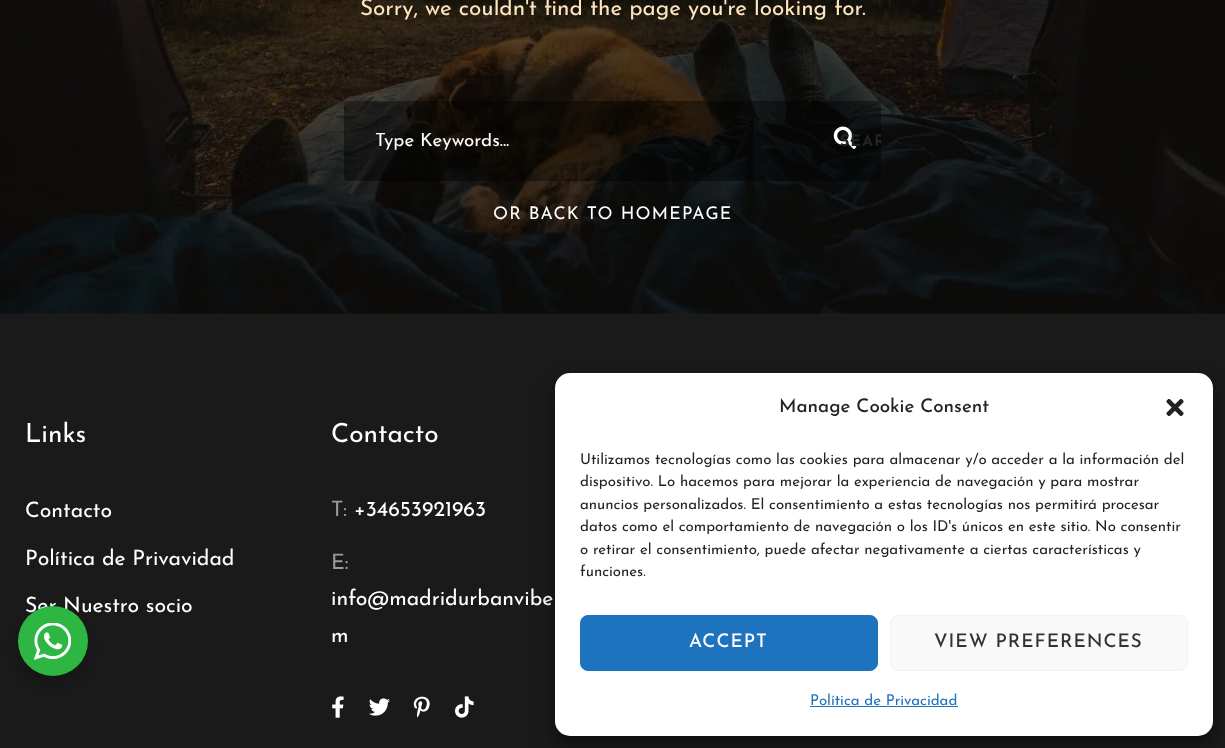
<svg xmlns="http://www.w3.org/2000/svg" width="1225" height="748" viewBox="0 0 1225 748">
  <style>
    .t1 { font: 22.5px Josefin Sans; fill: #ffe5bf; }
    .t2 { font: 18.75px Josefin Sans; fill: #fff; }
    .t3 { font: bold 16px Josefin Sans; letter-spacing: 1px; fill: #222324; }
    .t4 { font: 17.5px Josefin Sans; letter-spacing: 1.25px; fill: #fff; }
    .t5 { font: 26.25px Josefin Sans; fill: #fff; }
    .t6 { font: 21.25px Josefin Sans; fill: #fff; }
    .t7 { font: 21.25px Josefin Sans; fill: #9a9a9a; }
    .t8 { font: 500 18.75px Josefin Sans; fill: #222324; }
    .t9 { font: 15px Josefin Sans; fill: #222324; }
    .t10 { font: 500 18.75px Josefin Sans; letter-spacing: 1px; fill: #fff; }
    .t11 { font: 500 18.75px Josefin Sans; letter-spacing: 1px; fill: #333; }
    .t12 { font: 15px Josefin Sans; fill: #1e73be; }
  </style>
  <defs>
    <clipPath id="clip1"><rect x="375" y="133" width="431" height="18"/></clipPath>
    <clipPath id="clip2"><rect x="799" y="101" width="82" height="80"/></clipPath>
  </defs>
  <rect width="100%" height="100%" fill="#1a1a1a"/>
  <rect x="0" y="0" width="1225" height="314" fill="#281e0c"/>
  <image x="0" y="0" width="1225" height="314" href="images/1.png"/>
  <text x="360" y="15" class="t1">Sorry, we couldn't find the page you're looking for.</text>
  <rect x="344" y="101" width="537" height="80" rx="4" fill="#00000066"/>
  <g clip-path="url(#clip1)">
    <text x="375" y="146" class="t2">Type Keywords...</text>
  </g>
  <image x="833" y="126" width="24" height="23" href="images/2.png"/>
  <g clip-path="url(#clip2)">
    <text x="840" y="146" class="t3">SEAR</text>
  </g>
  <text x="493" y="219" class="t4">OR BACK TO HOMEPAGE</text>
  <text x="25" y="442" class="t5">Links</text>
  <text x="25" y="517" class="t6">Contacto</text>
  <text x="25" y="565" class="t6">Política de Privavidad</text>
  <text x="25" y="612" class="t6">Ser Nuestro socio</text>
  <text x="331" y="442" class="t5">Contacto</text>
  <text x="331" y="516" class="t7">T:</text>
  <text x="354" y="516" class="t6">+34653921963</text>
  <text x="331" y="569" class="t7">E:</text>
  <text x="331" y="605" class="t6">info@madridurbanvibe</text>
  <text x="331" y="642" class="t6">m</text>
  <image x="332" y="696" width="12" height="22" href="images/3.png"/>
  <image x="369" y="698" width="21" height="18" href="images/4.png"/>
  <image x="413" y="696" width="17" height="22" href="images/5.png"/>
  <image x="455" y="696" width="19" height="22" href="images/6.png"/>
  <rect x="555" y="380" width="658" height="364" rx="15" fill="#0000003b" filter="blur(4px)"/>
  <rect x="555" y="385" width="658" height="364" rx="15" fill="#00000030" filter="blur(12.5px)"/>
  <rect x="555" y="373" width="658" height="363" rx="15" fill="#fff"/>
  <text x="779" y="412" class="t8">Manage Cookie Consent</text>
  <image x="1166" y="398" width="18" height="18" href="images/7.png"/>
  <text x="580" y="464" class="t9">Utilizamos tecnologías como las cookies para almacenar y/o acceder a la información del</text>
  <text x="580" y="486" class="t9">dispositivo. Lo hacemos para mejorar la experiencia de navegación y para mostrar</text>
  <text x="580" y="509" class="t9">anuncios personalizados. El consentimiento a estas tecnologías nos permitirá procesar</text>
  <text x="580" y="531" class="t9">datos como el comportamiento de navegación o los ID's únicos en este sitio. No consentir</text>
  <text x="580" y="554" class="t9">o retirar el consentimiento, puede afectar negativamente a ciertas características y</text>
  <text x="580" y="576" class="t9">funciones.</text>
  <rect x="580.5" y="615.5" width="297" height="55" rx="7.5" fill="#1e73be" stroke="#1e73be"/>
  <text x="689" y="647" class="t10">ACCEPT</text>
  <rect x="890.5" y="615.5" width="297" height="55" rx="7.5" fill="#f9f9f9" stroke="#f2f2f2"/>
  <text x="934" y="647" class="t11">VIEW PREFERENCES</text>
  <text x="810" y="705" class="t12">Política de Privacidad</text>
  <rect x="810" y="706" width="148" height="1" fill="#1e73be"/>
  <rect x="15" y="611" width="75" height="75" rx="37.5" fill="#00000024" filter="blur(5px)"/>
  <circle cx="53" cy="641" r="35" fill="#2db742"/>
  <image x="34" y="623" width="37" height="37" href="images/8.png"/>
</svg>
